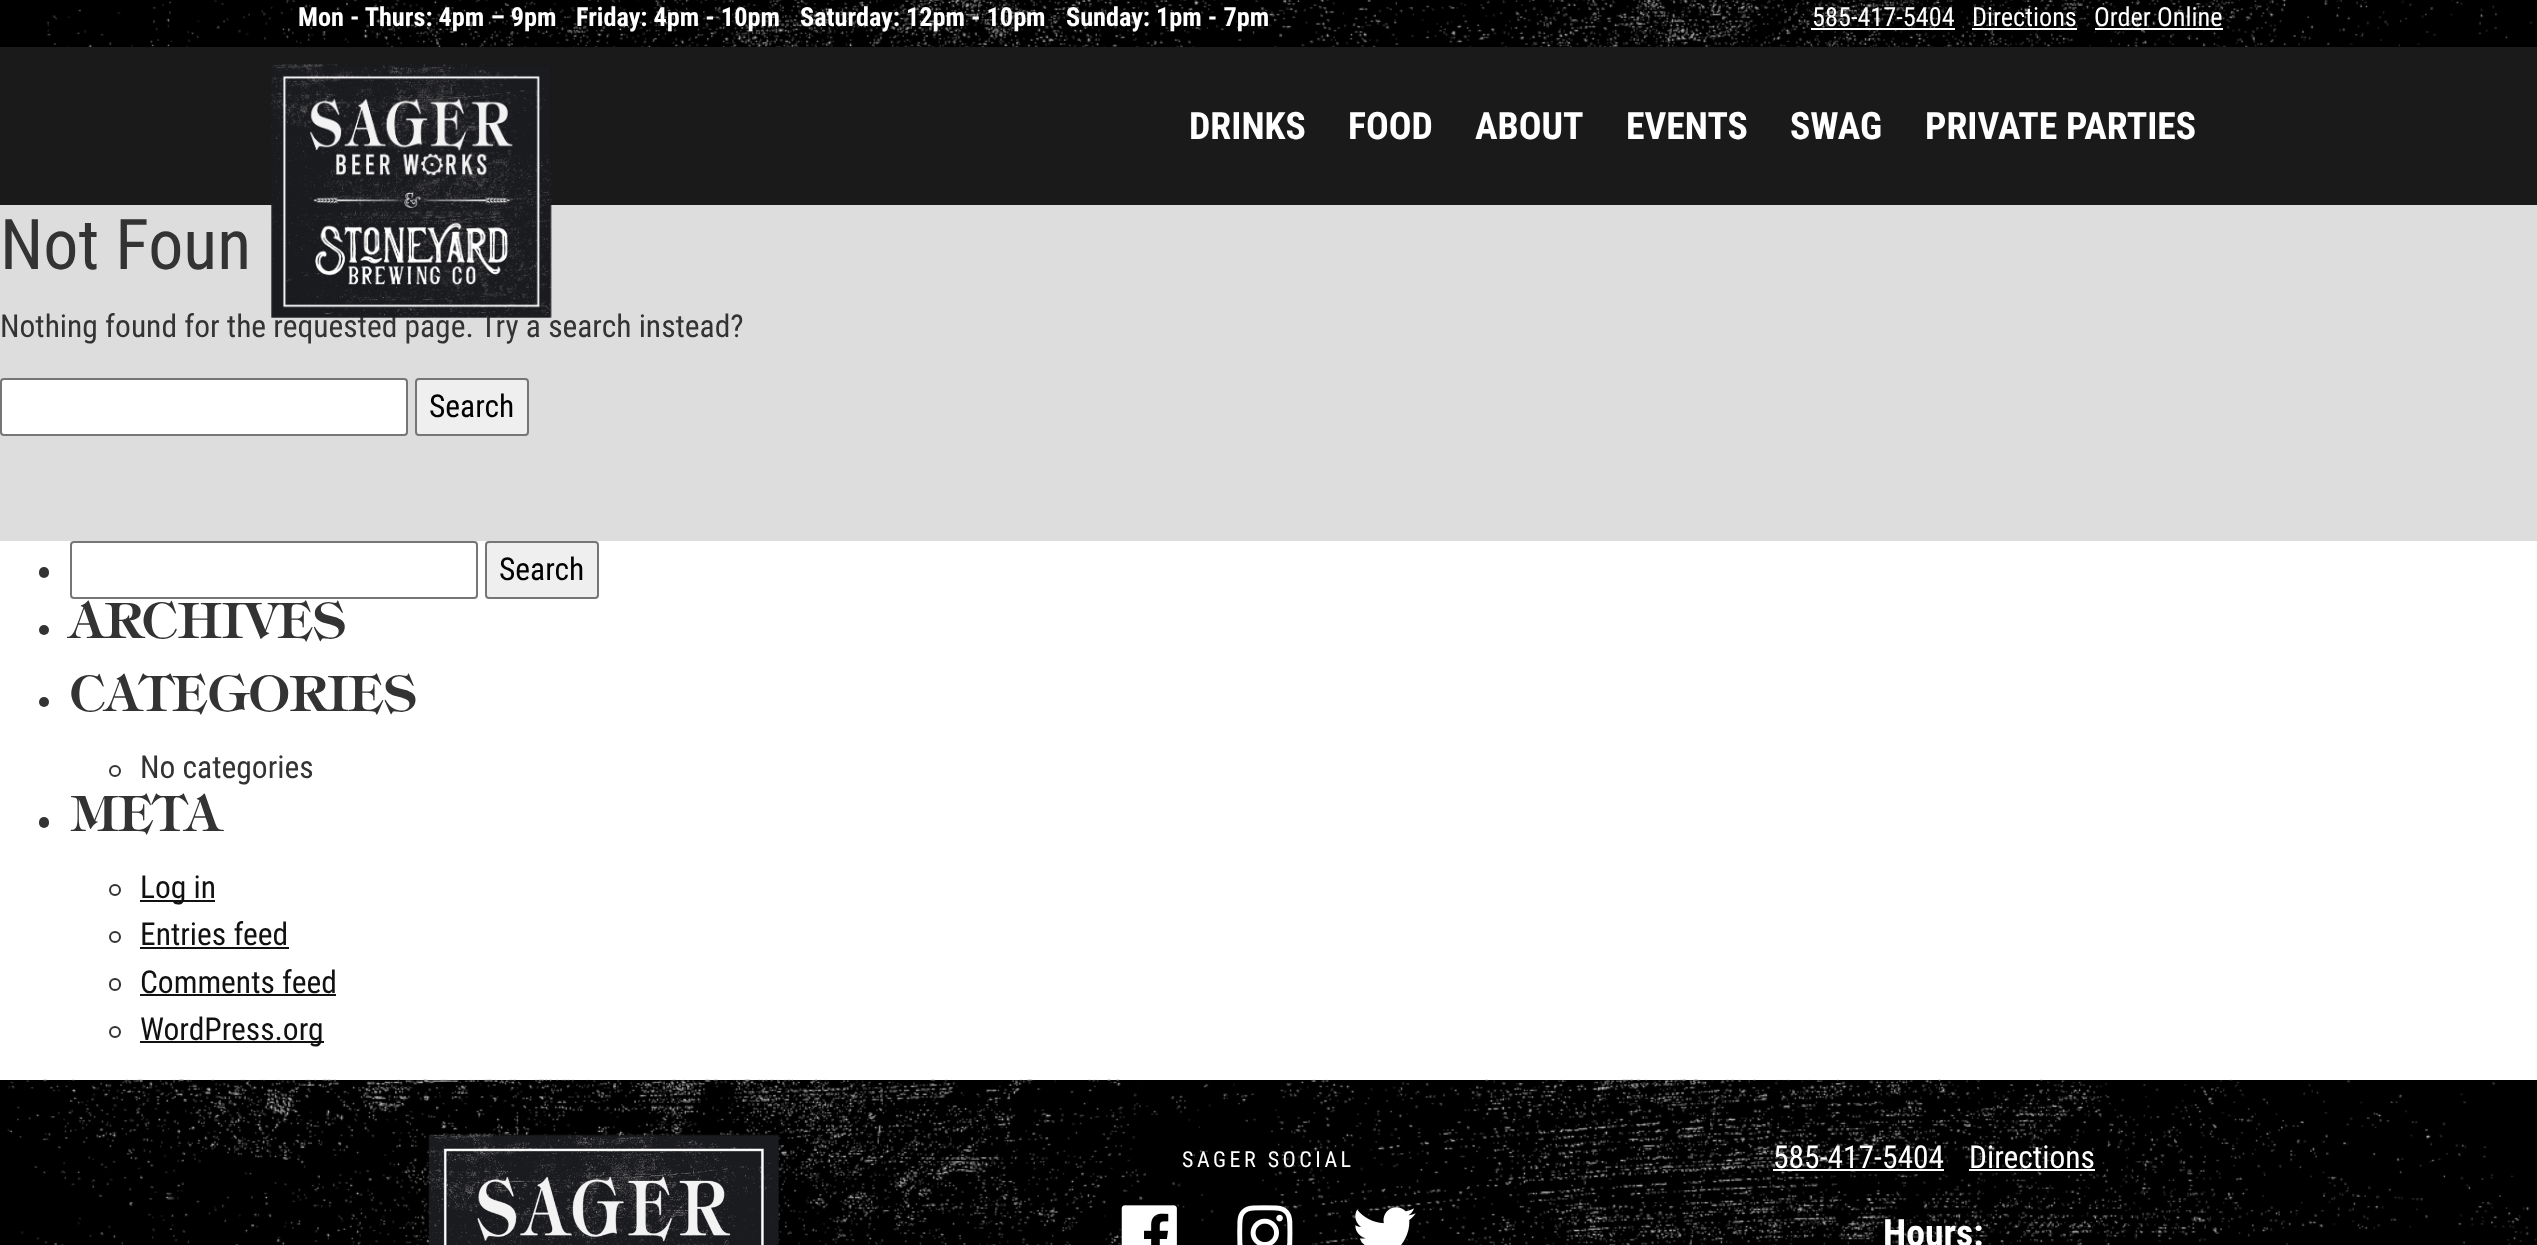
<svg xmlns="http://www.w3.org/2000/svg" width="2537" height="1245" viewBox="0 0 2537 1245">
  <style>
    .t1 { font: bold 26.25px Roboto Condensed; fill: #fff; }
    .t2 { font: 26.25px Roboto Condensed; fill: #fff; }
    .t3 { font: 31.5px Roboto Condensed; fill: #333; }
    .t4 { font: bold 37.75px Roboto Condensed; fill: #fff; }
    .t5 { font: 70px Roboto Condensed; fill: #333; }
    .t6 { font: 31.5px Roboto Condensed; fill: #000; }
    .t7 { font: bold 49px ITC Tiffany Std; fill: #333; }
    .t8 { font: 31.5px Roboto Condensed; fill: #111; }
    .t9 { font: 22px Roboto Condensed; letter-spacing: 3.5px; fill: #fff; }
    .t10 { font: 31.5px Roboto Condensed; fill: #fff; }
  </style>
  <rect width="100%" height="100%" fill="#fff"/>
  <rect x="0" y="0" width="2537" height="47" fill="#000"/>
  <image x="46" y="0" width="2487" height="47" href="images/1.png"/>
  <text x="298" y="26" class="t1">Mon - Thurs: 4pm – 9pm</text>
  <text x="576" y="26" class="t1">Friday: 4pm - 10pm</text>
  <text x="800" y="26" class="t1">Saturday: 12pm - 10pm</text>
  <text x="1066" y="26" class="t1">Sunday: 1pm - 7pm</text>
  <text x="1812" y="26" class="t2">585-417-5404</text>
  <rect x="1811" y="28" width="144" height="2" fill="#fff"/>
  <text x="1972" y="26" class="t2">Directions</text>
  <rect x="1972" y="28" width="105" height="2" fill="#fff"/>
  <text x="2094" y="26" class="t2">Order Online</text>
  <rect x="2095" y="28" width="128" height="2" fill="#fff"/>
  <rect x="0" y="47" width="2537" height="158" fill="#1a1a1a"/>
  <rect x="0" y="205" width="2537" height="336" fill="#ddd"/>
  <text x="0" y="337" class="t3">Nothing found for the requested page. Try a search instead?</text>
  <image x="271" y="64" width="281" height="254" href="images/2.png"/>
  <text x="1189" y="139" class="t4">DRINKS</text>
  <text x="1348" y="139" class="t4">FOOD</text>
  <text x="1475" y="139" class="t4">ABOUT</text>
  <text x="1626" y="139" class="t4">EVENTS</text>
  <text x="1790" y="139" class="t4">SWAG</text>
  <text x="1925" y="139" class="t4">PRIVATE PARTIES</text>
  <text x="0" y="269" class="t5">Not Foun</text>
  <rect x="1" y="379" width="406" height="56" rx="3" fill="#fff" stroke="#767676" stroke-width="2"/>
  <rect x="416" y="379" width="112" height="56" rx="3" fill="#efefef" stroke="#767676" stroke-width="2"/>
  <text x="429" y="417" class="t6">Search</text>
  <rect x="39" y="567" width="10" height="11" rx="5" fill="#333"/>
  <rect x="71" y="542" width="406" height="56" rx="3" fill="none" stroke="#767676" stroke-width="2"/>
  <rect x="486" y="542" width="112" height="56" rx="3" fill="#efefef" stroke="#767676" stroke-width="2"/>
  <text x="499" y="580" class="t6">Search</text>
  <circle cx="44" cy="630" r="5" fill="#333"/>
  <text x="70" y="638" class="t7">ARCHIVES</text>
  <circle cx="44" cy="702" r="5" fill="#333"/>
  <text x="70" y="711" class="t7">CATEGORIES</text>
  <circle cx="115" cy="771" r="5" fill="none" stroke="#333" stroke-width="2"/>
  <text x="140" y="778" class="t3">No categories</text>
  <rect x="39" y="817" width="10" height="11" rx="5" fill="#333"/>
  <text x="70" y="831" class="t7">META</text>
  <circle cx="115" cy="890" r="5" fill="none" stroke="#333" stroke-width="2"/>
  <rect x="140" y="900" width="75" height="2" fill="#111"/>
  <text x="140" y="898" class="t8">Log in</text>
  <circle cx="115" cy="937" r="5" fill="none" stroke="#333" stroke-width="2"/>
  <text x="140" y="945" class="t8">Entries feed</text>
  <rect x="140" y="947" width="149" height="2" fill="#111"/>
  <rect x="110" y="979" width="10" height="11" rx="5" fill="none" stroke="#333" stroke-width="2"/>
  <text x="140" y="993" class="t8">Comments feed</text>
  <rect x="140" y="994" width="196" height="2" fill="#111"/>
  <circle cx="115" cy="1032" r="5" fill="none" stroke="#333" stroke-width="2"/>
  <rect x="140" y="1041" width="184" height="2" fill="#111"/>
  <text x="140" y="1040" class="t8">WordPress.org</text>
  <rect x="0" y="1080" width="2537" height="165" fill="#000"/>
  <image x="7" y="1079" width="2530" height="166" href="images/3.png"/>
  <image x="428" y="1133" width="351" height="112" href="images/4.png"/>
  <text x="1182" y="1167" class="t9">SAGER SOCIAL</text>
  <image x="1121" y="1205" width="56" height="40" href="images/5.png"/>
  <image x="1237" y="1205" width="56" height="40" href="images/6.png"/>
  <image x="1355" y="1207" width="61" height="38" href="images/7.png"/>
  <text x="1773" y="1168" class="t10">585-417-5404</text>
  <rect x="1773" y="1169" width="171" height="2" fill="#fff"/>
  <text x="1969" y="1168" class="t10">Directions</text>
  <rect x="1969" y="1169" width="126" height="2" fill="#fff"/>
  <text x="1883" y="1246" class="t4">Hours:</text>
</svg>
